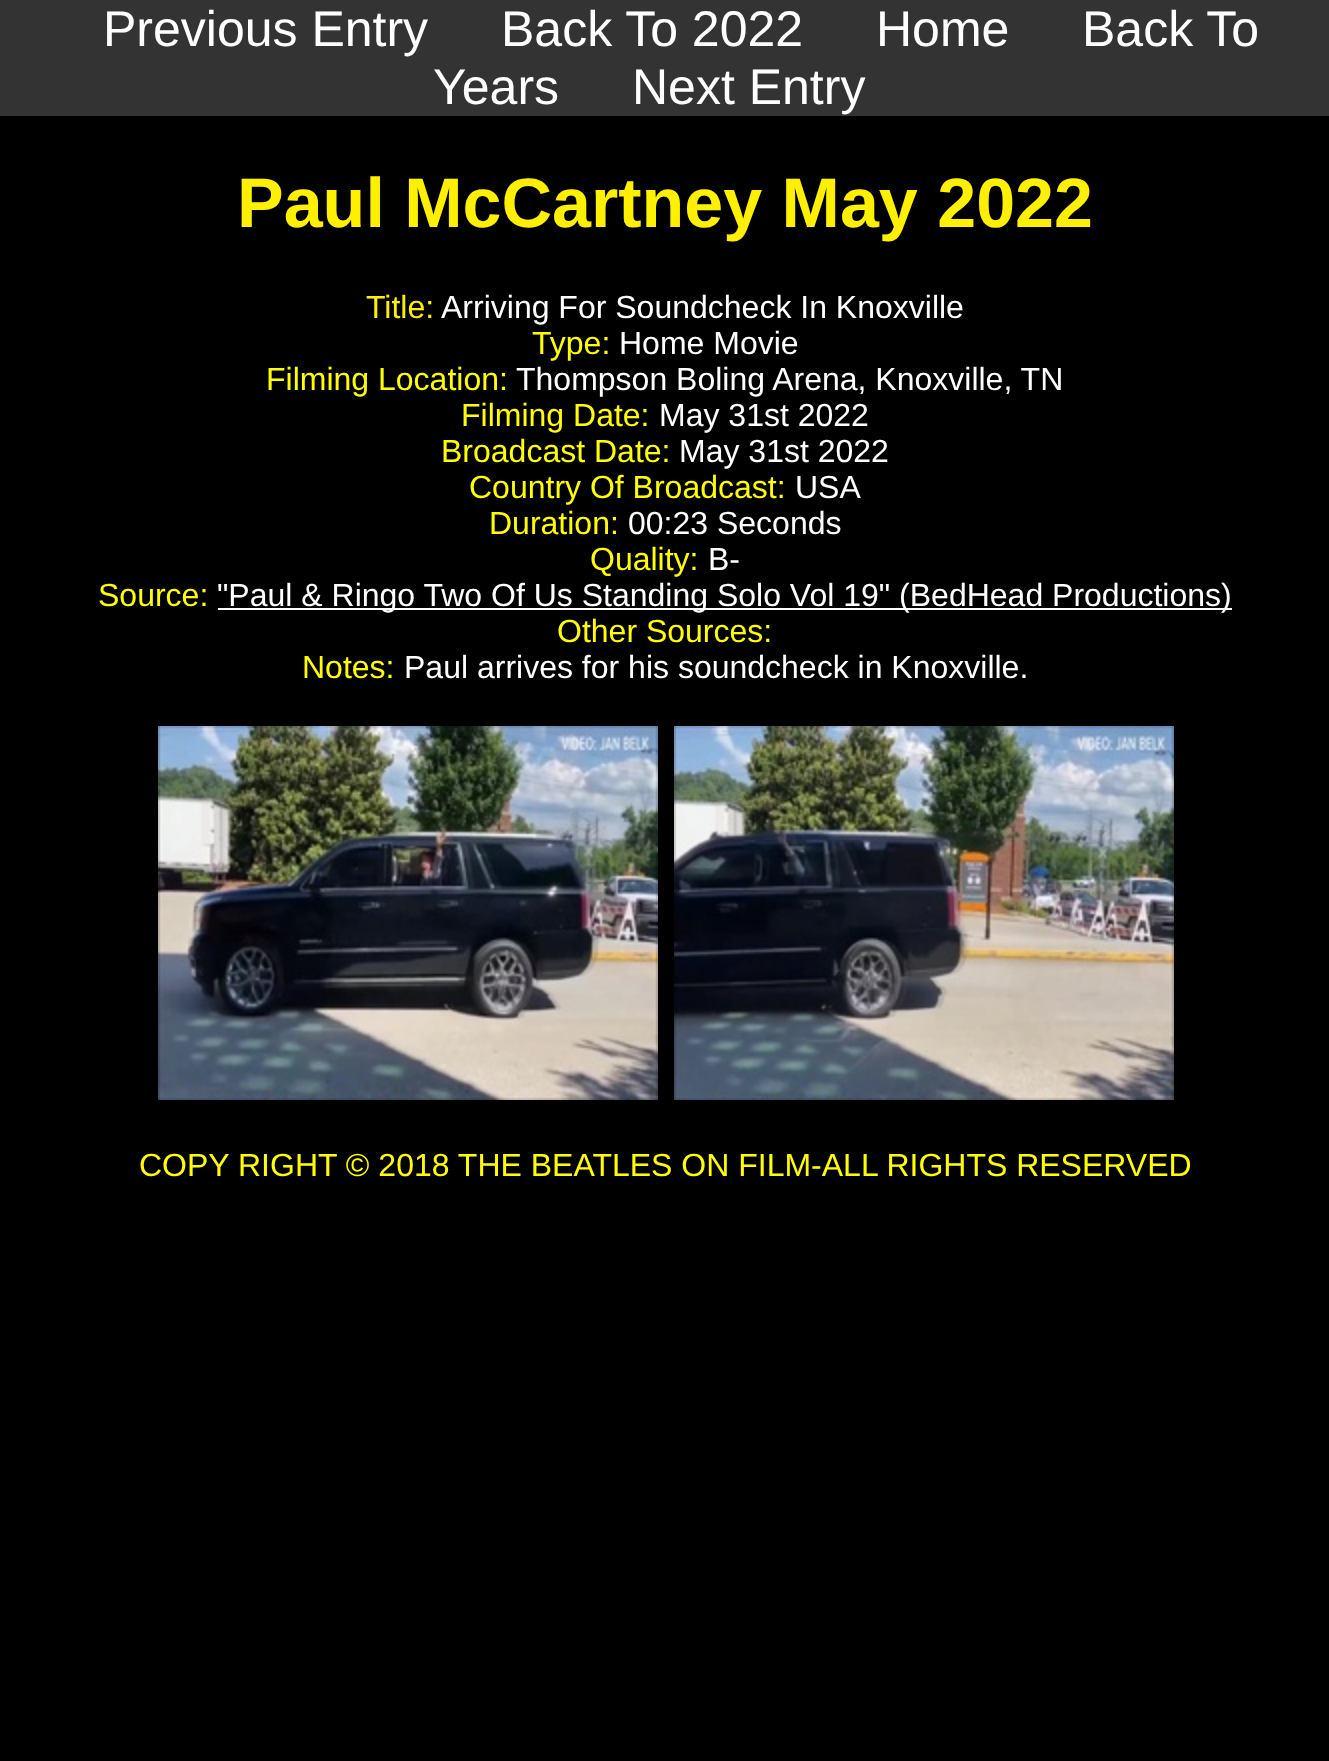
<svg xmlns="http://www.w3.org/2000/svg" width="1329" height="1761" viewBox="0 0 1329 1761">
  <style>
    .t1 { font: 50px Liberation Sans; fill: #fff; }
    .t2 { font: bold 70px Liberation Sans; fill: #fff000; }
    .t3 { font: 32px Liberation Sans; fill: #fff000; }
    .t4 { font: 32px Liberation Sans; fill: #fff; }
    .t5 { font: 32px Liberation Sans; fill: #ff0; }
  </style>
  <rect width="100%" height="100%" fill="#000"/>
  <rect x="0" y="0" width="1329" height="116" fill="#333"/>
  <text x="103" y="46" class="t1">Previous Entry</text>
  <text x="501" y="46" class="t1">Back To 2022</text>
  <text x="876" y="46" class="t1">Home</text>
  <text x="1082" y="46" class="t1">Back To</text>
  <text x="433" y="104" class="t1">Years</text>
  <text x="632" y="104" class="t1">Next Entry</text>
  <text x="237" y="227" class="t2">Paul McCartney May 2022</text>
  <text x="366" y="318" class="t3">Title:</text>
  <text x="441" y="318" class="t4">Arriving For Soundcheck In Knoxville</text>
  <text x="532" y="354" class="t5">Type:</text>
  <text x="619" y="354" class="t4">Home Movie</text>
  <text x="266" y="390" class="t5">Filming Location:</text>
  <text x="516" y="390" class="t4">Thompson Boling Arena, Knoxville, TN</text>
  <text x="461" y="426" class="t5">Filming Date:</text>
  <text x="659" y="426" class="t4">May 31st 2022</text>
  <text x="441" y="462" class="t5">Broadcast Date:</text>
  <text x="679" y="462" class="t4">May 31st 2022</text>
  <text x="469" y="498" class="t5">Country Of Broadcast:</text>
  <text x="795" y="498" class="t4">USA</text>
  <text x="489" y="534" class="t5">Duration:</text>
  <text x="628" y="534" class="t4">00:23 Seconds</text>
  <text x="590" y="570" class="t5">Quality:</text>
  <text x="708" y="570" class="t4">B-</text>
  <text x="98" y="606" class="t5">Source:</text>
  <rect x="218" y="608" width="1014" height="2" fill="#fff"/>
  <text x="217" y="606" class="t4">"Paul &amp; Ringo Two Of Us Standing Solo Vol 19" (BedHead Productions)</text>
  <text x="557" y="642" class="t5">Other Sources:</text>
  <text x="302" y="678" class="t5">Notes:</text>
  <text x="404" y="678" class="t4">Paul arrives for his soundcheck in Knoxville.</text>
  <image x="158" y="726" width="500" height="374" href="images/1.png"/>
  <image x="674" y="726" width="500" height="374" href="images/2.png"/>
  <text x="139" y="1176" class="t5">COPY RIGHT © 2018 THE BEATLES ON FILM-ALL RIGHTS RESERVED</text>
</svg>
